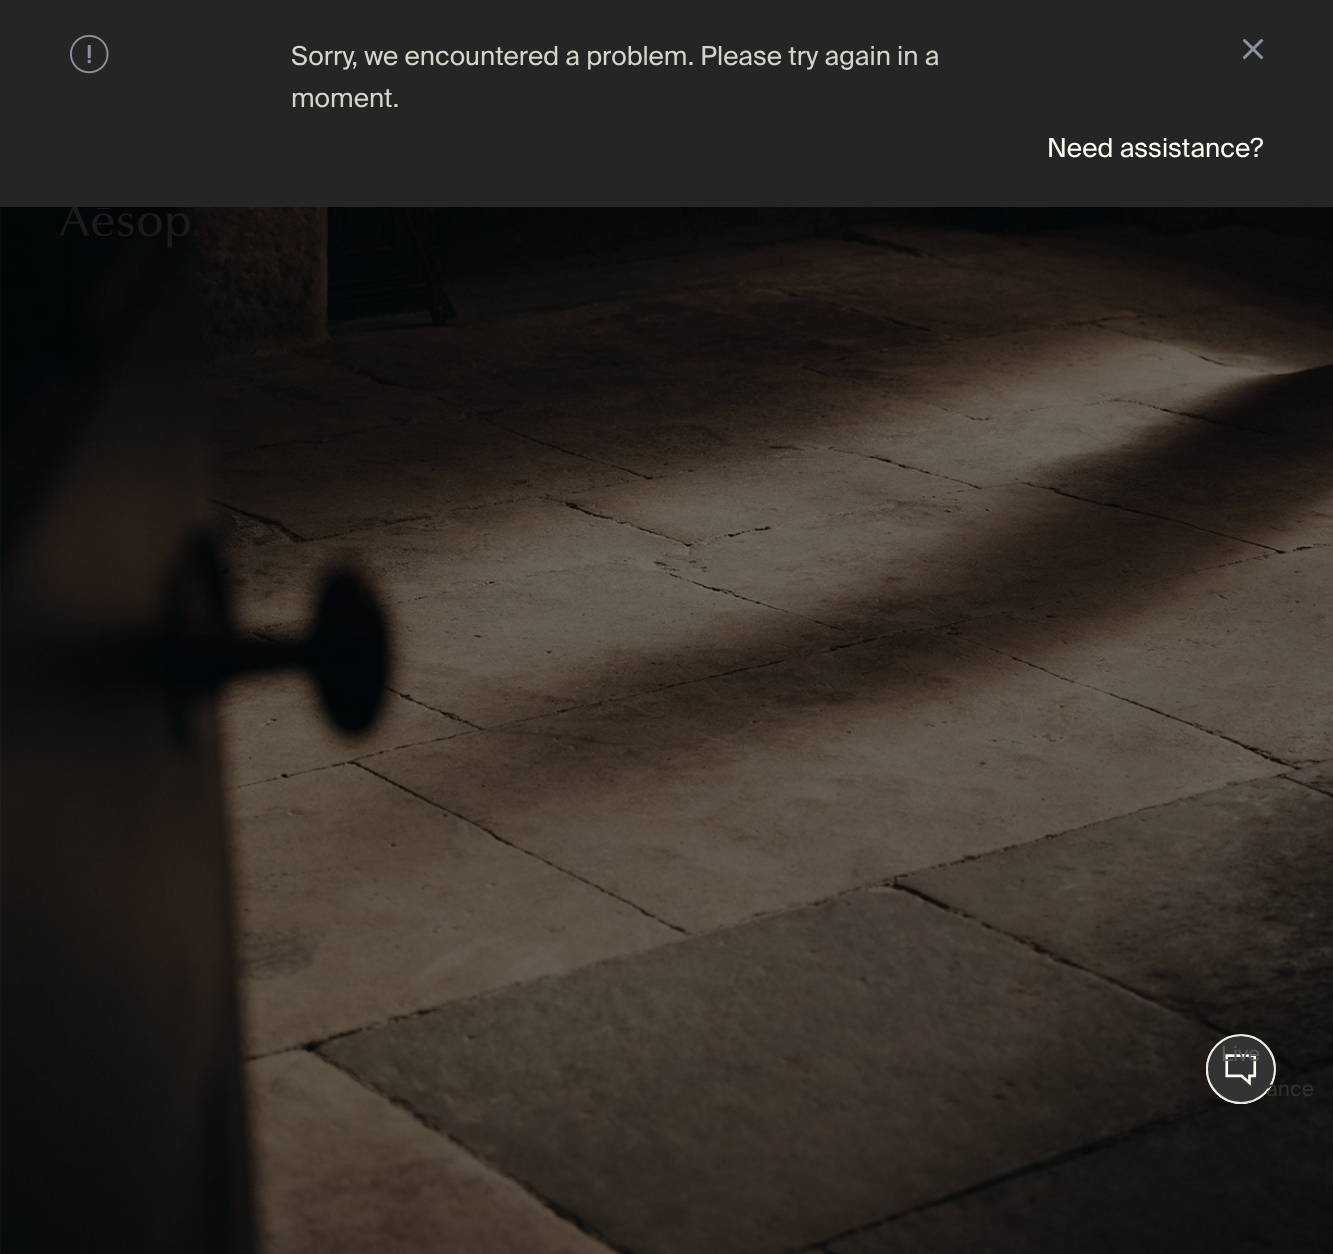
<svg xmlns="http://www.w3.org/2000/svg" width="1333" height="1254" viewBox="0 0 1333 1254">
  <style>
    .t1 { font: 26.25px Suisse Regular; fill: #d5d4c9; }
    .t2 { font: 26.25px Suisse Regular; fill: #fffef2; }
    .t3 { font: 21px Suisse Regular; fill: #5b5b59; }
    .t4 { font: 21px Suisse Regular; fill: #30302f; }
  </style>
  <rect width="100%" height="100%" fill="#fff"/>
  <rect x="0" y="0" width="1333" height="207" fill="#252525"/>
  <image x="70" y="35" width="39" height="39" href="images/1.png"/>
  <text x="291" y="65" class="t1">Sorry, we encountered a problem. Please try again in a</text>
  <text x="291" y="107" class="t1">moment.</text>
  <image x="1243" y="39" width="21" height="21" href="images/2.png"/>
  <text x="1047" y="157" class="t2">Need assistance?</text>
  <image x="0" y="207" width="1333" height="1047" href="images/5.png"/>
  <image x="60" y="207" width="140" height="41" href="images/3.png"/>
  <image x="1206" y="1034" width="70" height="70" href="images/4.png"/>
  <circle cx="1241" cy="1069" r="34" fill="none" stroke="#ebeade" stroke-width="2"/>
  <text x="1221" y="1061" class="t3">Live</text>
  <text x="1266" y="1096" class="t4">ance</text>
</svg>
